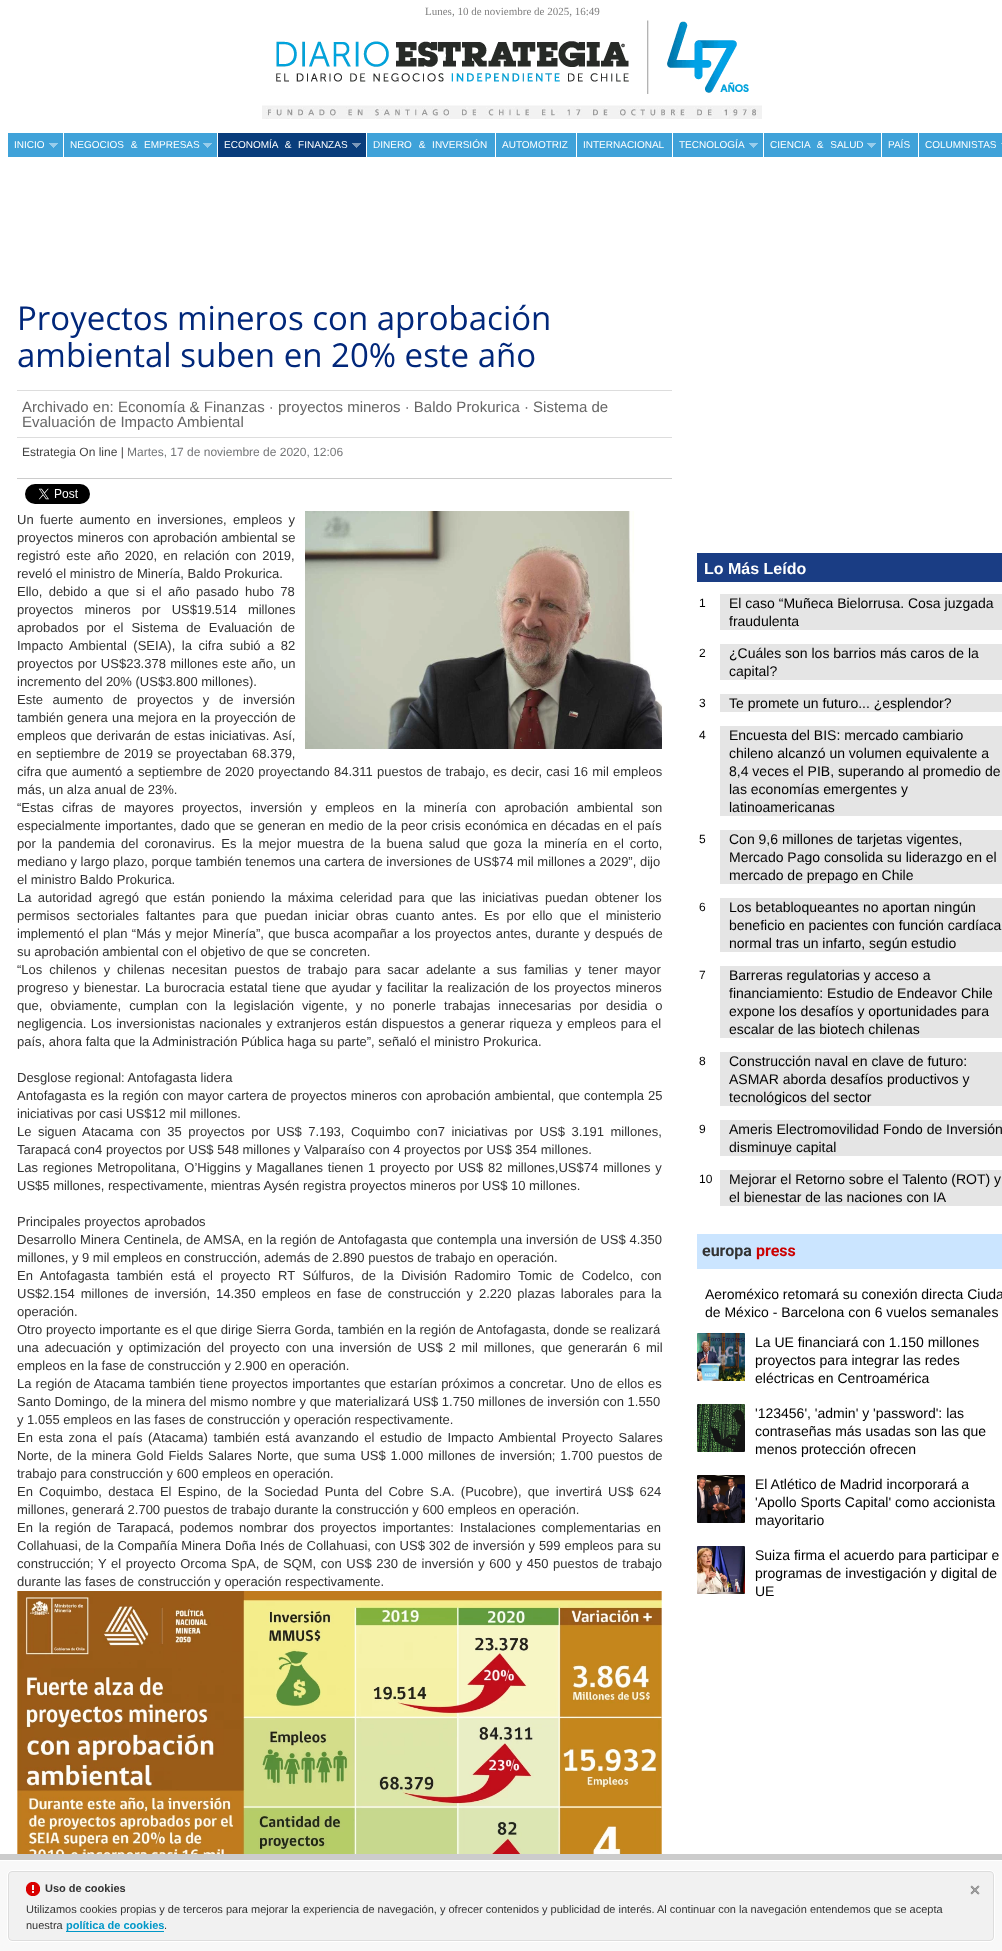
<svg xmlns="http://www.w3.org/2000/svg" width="1002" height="1951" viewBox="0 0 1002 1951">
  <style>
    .t1 { font: 11px Liberation Serif; fill: #808080; }
    .t2 { font: 10px Liberation Sans; fill: #fff; }
    .t3 { font: 33px Open Sans; fill: #01277a; }
    .t4 { font: 15px Liberation Sans; fill: #666; }
    .t5 { font: 12px Liberation Sans; fill: #444; }
    .t6 { font: 12px Liberation Sans; fill: #747678; }
    .t7 { font: 13px Liberation Sans; fill: #333; }
    .t8 { font: bold 16px Liberation Sans; fill: #fff; }
    .t9 { font: 12px Liberation Sans; fill: #000; }
    .t10 { font: 14px Liberation Sans; fill: #000; }
    .t11 { font: bold 16px Roboto; fill: #333; }
    .t12 { font: bold 16px Roboto; fill: #c00; }
    .t13 { font: bold 11px Liberation Sans; fill: #333; }
    .t14 { font: 11px Liberation Sans; fill: #333; }
    .t15 { font: bold 11px Liberation Sans; fill: #0097c8; }
  </style>
  <rect width="100%" height="100%" fill="#fff"/>
  <text x="425" y="15" class="t1">Lunes, 10 de noviembre de 2025, 16:49</text>
  <image x="262" y="20" width="500" height="99" href="images/1.png"/>
  <rect x="8" y="133" width="55" height="24" fill="#3fa2d9"/>
  <text x="14" y="148" class="t2">INICIO</text>
  <image x="49" y="143" width="9" height="5" href="images/2.png"/>
  <rect x="64" y="133" width="153" height="24" fill="#3fa2d9"/>
  <text x="70" y="148" word-spacing="4" class="t2">NEGOCIOS &amp; EMPRESAS</text>
  <image x="203" y="143" width="9" height="5" href="images/2.png"/>
  <rect x="218" y="133" width="148" height="24" fill="#093d7c"/>
  <text x="224" y="148" word-spacing="4" class="t2">ECONOMÍA &amp; FINANZAS</text>
  <image x="352" y="143" width="9" height="5" href="images/3.png"/>
  <rect x="367" y="133" width="128" height="24" fill="#3fa2d9"/>
  <text x="373" y="148" word-spacing="4" class="t2">DINERO &amp; INVERSIÓN</text>
  <rect x="496" y="133" width="80" height="24" fill="#3fa2d9"/>
  <text x="502" y="148" class="t2">AUTOMOTRIZ</text>
  <rect x="577" y="133" width="95" height="24" fill="#3fa2d9"/>
  <text x="583" y="148" class="t2">INTERNACIONAL</text>
  <rect x="673" y="133" width="90" height="24" fill="#3fa2d9"/>
  <text x="679" y="148" class="t2">TECNOLOGÍA</text>
  <image x="749" y="143" width="9" height="5" href="images/2.png"/>
  <rect x="764" y="133" width="117" height="24" fill="#3fa2d9"/>
  <text x="770" y="148" word-spacing="4" class="t2">CIENCIA &amp; SALUD</text>
  <image x="867" y="143" width="9" height="5" href="images/2.png"/>
  <rect x="882" y="133" width="36" height="24" fill="#3fa2d9"/>
  <text x="888" y="148" class="t2">PAÍS</text>
  <rect x="919" y="133" width="83" height="24" fill="#3fa2d9"/>
  <text x="925" y="148" class="t2">COLUMNISTAS</text>
  <rect x="1001" y="143" width="1" height="1" fill="#99ceeb"/>
  <text x="17" y="330" class="t3">Proyectos mineros con aprobación</text>
  <text x="17" y="367" class="t3">ambiental suben en 20% este año</text>
  <rect x="17" y="390" width="655" height="1" fill="#ddd"/>
  <rect x="17" y="437" width="655" height="1" fill="#ddd"/>
  <text x="22" y="412" class="t4">Archivado en: Economía &amp; Finanzas · proyectos mineros · Baldo Prokurica · Sistema de</text>
  <text x="22" y="427" class="t4">Evaluación de Impacto Ambiental</text>
  <text x="22" y="456" class="t5">Estrategia On line |</text>
  <text x="127" y="456" class="t6">Martes, 17 de noviembre de 2020, 12:06</text>
  <rect x="17" y="478" width="655" height="1" fill="#ccc"/>
  <image x="25" y="484" width="65" height="20" href="images/4.png"/>
  <text x="17" y="524" word-spacing="2.75" class="t7">Un fuerte aumento en inversiones, empleos y</text>
  <text x="17" y="542" word-spacing="0.5" class="t7">proyectos mineros con aprobación ambiental se</text>
  <text x="17" y="560" word-spacing="2.4" class="t7">registró este año 2020, en relación con 2019,</text>
  <text x="17" y="578" class="t7">reveló el ministro de Minería, Baldo Prokurica.</text>
  <image x="305" y="511" width="357" height="238" href="images/5.png"/>
  <text x="17" y="596" word-spacing="2.75" class="t7">Ello, debido a que si el año pasado hubo 78</text>
  <text x="17" y="614" word-spacing="7.5" class="t7">proyectos mineros por US$19.514 millones</text>
  <text x="17" y="632" word-spacing="4.4" class="t7">aprobados por el Sistema de Evaluación de</text>
  <text x="17" y="650" word-spacing="2.9" class="t7">Impacto Ambiental (SEIA), la cifra subió a 82</text>
  <text x="17" y="668" word-spacing="0.75" class="t7">proyectos por US$23.378 millones este año, un</text>
  <text x="17" y="686" class="t7">incremento del 20% (US$3.800 millones).</text>
  <text x="17" y="704" word-spacing="6" class="t7">Este aumento de proyectos y de inversión</text>
  <text x="17" y="722" word-spacing="0.5" class="t7">también genera una mejora en la proyección de</text>
  <text x="17" y="740" word-spacing="0.75" class="t7">empleos que derivarán de estas iniciativas. Así,</text>
  <text x="17" y="758" word-spacing="1" class="t7">en septiembre de 2019 se proyectaban 68.379,</text>
  <text x="17" y="776" word-spacing="0.6" class="t7">cifra que aumentó a septiembre de 2020 proyectando 84.311 puestos de trabajo, es decir, casi 16 mil empleos</text>
  <text x="17" y="794" class="t7">más, un alza anual de 23%.</text>
  <text x="17" y="812" word-spacing="4.6" class="t7">“Estas cifras de mayores proyectos, inversión y empleos en la minería con aprobación ambiental son</text>
  <text x="17" y="830" word-spacing="0.6" class="t7">especialmente importantes, dado que se generan en medio de la peor crisis económica en décadas en el país</text>
  <text x="17" y="848" word-spacing="2.4" class="t7">por la pandemia del coronavirus. Es la mejor muestra de la buena salud que goza la minería en el corto,</text>
  <text x="17" y="866" class="t7">mediano y largo plazo, porque también tenemos una cartera de inversiones de US$74 mil millones a 2029”, dijo</text>
  <text x="17" y="884" class="t7">el ministro Baldo Prokurica.</text>
  <text x="17" y="902" word-spacing="2.75" class="t7">La autoridad agregó que están poniendo la máxima celeridad para que las iniciativas puedan obtener los</text>
  <text x="17" y="920" word-spacing="3.5" class="t7">permisos sectoriales faltantes para que puedan iniciar obras cuanto antes. Es por ello que el ministerio</text>
  <text x="17" y="938" word-spacing="0.7" class="t7">implementó el plan “Más y mejor Minería”, que busca acompañar a los proyectos antes, durante y después de</text>
  <text x="17" y="956" class="t7">su aprobación ambiental con el objetivo de que se concreten.</text>
  <text x="17" y="974" word-spacing="3.25" class="t7">“Los chilenos y chilenas necesitan puestos de trabajo para sacar adelante a sus familias y tener mayor</text>
  <text x="17" y="992" word-spacing="1" class="t7">progreso y bienestar. La burocracia estatal tiene que ayudar y facilitar la realización de los proyectos mineros</text>
  <text x="17" y="1010" word-spacing="4.4" class="t7">que, obviamente, cumplan con la legislación vigente, y no ponerle trabajas innecesarias por desidia o</text>
  <text x="17" y="1028" word-spacing="0.8" class="t7">negligencia. Los inversionistas nacionales y extranjeros están dispuestos a generar riqueza y empleos para el</text>
  <text x="17" y="1046" class="t7">país, ahora falta que la Administración Pública haga su parte”, señaló el ministro Prokurica.</text>
  <text x="17" y="1082" class="t7">Desglose regional: Antofagasta lidera</text>
  <text x="17" y="1100" word-spacing="0.4" class="t7">Antofagasta es la región con mayor cartera de proyectos mineros con aprobación ambiental, que contempla 25</text>
  <text x="17" y="1118" class="t7">iniciativas por casi US$12 mil millones.</text>
  <text x="17" y="1136" word-spacing="2.9" class="t7">Le siguen Atacama con 35 proyectos por US$ 7.193, Coquimbo con7 iniciativas por US$ 3.191 millones,</text>
  <text x="17" y="1154" class="t7">Tarapacá con4 proyectos por US$ 548 millones y Valparaíso con 4 proyectos por US$ 354 millones.</text>
  <text x="17" y="1172" word-spacing="1.1" class="t7">Las regiones Metropolitana, O’Higgins y Magallanes tienen 1 proyecto por US$ 82 millones,US$74 millones y</text>
  <text x="17" y="1190" class="t7">US$5 millones, respectivamente, mientras Aysén registra proyectos mineros por US$ 10 millones.</text>
  <text x="17" y="1226" class="t7">Principales proyectos aprobados</text>
  <text x="17" y="1244" word-spacing="0.25" class="t7">Desarrollo Minera Centinela, de AMSA, en la región de Antofagasta que contempla una inversión de US$ 4.350</text>
  <text x="17" y="1262" class="t7">millones, y 9 mil empleos en construcción, además de 2.890 puestos de trabajo en operación.</text>
  <text x="17" y="1280" word-spacing="4" class="t7">En Antofagasta también está el proyecto RT Súlfuros, de la División Radomiro Tomic de Codelco, con</text>
  <text x="17" y="1298" word-spacing="2.25" class="t7">US$2.154 millones de inversión, 14.350 empleos en fase de construcción y 2.220 plazas laborales para la</text>
  <text x="17" y="1316" class="t7">operación.</text>
  <text x="17" y="1334" class="t7">Otro proyecto importante es el que dirige Sierra Gorda, también en la región de Antofagasta, donde se realizará</text>
  <text x="17" y="1352" word-spacing="2.1" class="t7">una adecuación y optimización del proyecto con una inversión de US$ 2 mil millones, que generarán 6 mil</text>
  <text x="17" y="1370" class="t7">empleos en la fase de construcción y 2.900 en operación.</text>
  <text x="17" y="1388" word-spacing="0.5" class="t7">La región de Atacama también tiene proyectos importantes que estarían próximos a concretar. Uno de ellos es</text>
  <text x="17" y="1406" class="t7">Santo Domingo, de la minera del mismo nombre y que materializará US$ 1.750 millones de inversión con 1.550</text>
  <text x="17" y="1424" class="t7">y 1.055 empleos en las fases de construcción y operación respectivamente.</text>
  <text x="17" y="1442" word-spacing="1.9" class="t7">En esta zona el país (Atacama) también está avanzando el estudio de Impacto Ambiental Proyecto Salares</text>
  <text x="17" y="1460" word-spacing="1.25" class="t7">Norte, de la minera Gold Fields Salares Norte, que suma US$ 1.000 millones de inversión; 1.700 puestos de</text>
  <text x="17" y="1478" class="t7">trabajo para construcción y 600 empleos en operación.</text>
  <text x="17" y="1496" word-spacing="2.6" class="t7">En Coquimbo, destaca El Espino, de la Sociedad Punta del Cobre S.A. (Pucobre), que invertirá US$ 624</text>
  <text x="17" y="1514" class="t7">millones, generará 2.700 puestos de trabajo durante la construcción y 600 empleos en operación.</text>
  <text x="17" y="1532" word-spacing="2.25" class="t7">En la región de Tarapacá, podemos nombrar dos proyectos importantes: Instalaciones complementarias en</text>
  <text x="17" y="1550" word-spacing="0.25" class="t7">Collahuasi, de la Compañía Minera Doña Inés de Collahuasi, con US$ 302 de inversión y 599 empleos para su</text>
  <text x="17" y="1568" word-spacing="1" class="t7">construcción; Y el proyecto Orcoma SpA, de SQM, con US$ 230 de inversión y 600 y 450 puestos de trabajo</text>
  <text x="17" y="1586" class="t7">durante las fases de construcción y operación respectivamente.</text>
  <image x="17" y="1591" width="645" height="263" href="images/6.png"/>
  <rect x="697" y="553" width="305" height="29" fill="#1a3d84"/>
  <text x="704" y="574" class="t8">Lo Más Leído</text>
  <text x="699" y="607" class="t9">1</text>
  <rect x="720" y="594" width="282" height="36" fill="#e5e5e5"/>
  <text x="729" y="608" class="t10">El caso “Muñeca Bielorrusa. Cosa juzgada</text>
  <text x="729" y="626" class="t10">fraudulenta</text>
  <text x="699" y="657" class="t9">2</text>
  <rect x="720" y="644" width="282" height="36" fill="#e5e5e5"/>
  <text x="729" y="658" class="t10">¿Cuáles son los barrios más caros de la</text>
  <text x="729" y="676" class="t10">capital?</text>
  <text x="699" y="707" class="t9">3</text>
  <rect x="720" y="694" width="282" height="18" fill="#e5e5e5"/>
  <text x="729" y="708" class="t10">Te promete un futuro... ¿esplendor?</text>
  <text x="699" y="739" class="t9">4</text>
  <rect x="720" y="726" width="282" height="90" fill="#e5e5e5"/>
  <text x="729" y="740" class="t10">Encuesta del BIS: mercado cambiario</text>
  <text x="729" y="758" class="t10">chileno alcanzó un volumen equivalente a</text>
  <text x="729" y="776" class="t10">8,4 veces el PIB, superando al promedio de</text>
  <text x="729" y="794" class="t10">las economías emergentes y</text>
  <text x="729" y="812" class="t10">latinoamericanas</text>
  <text x="699" y="843" class="t9">5</text>
  <rect x="720" y="830" width="282" height="54" fill="#e5e5e5"/>
  <text x="729" y="844" class="t10">Con 9,6 millones de tarjetas vigentes,</text>
  <text x="729" y="862" class="t10">Mercado Pago consolida su liderazgo en el</text>
  <text x="729" y="880" class="t10">mercado de prepago en Chile</text>
  <text x="699" y="911" class="t9">6</text>
  <rect x="720" y="898" width="282" height="54" fill="#e5e5e5"/>
  <text x="729" y="912" class="t10">Los betabloqueantes no aportan ningún</text>
  <text x="729" y="930" class="t10">beneficio en pacientes con función cardíaca</text>
  <text x="729" y="948" class="t10">normal tras un infarto, según estudio</text>
  <text x="699" y="979" class="t9">7</text>
  <rect x="720" y="966" width="282" height="72" fill="#e5e5e5"/>
  <text x="729" y="980" class="t10">Barreras regulatorias y acceso a</text>
  <text x="729" y="998" class="t10">financiamiento: Estudio de Endeavor Chile</text>
  <text x="729" y="1016" class="t10">expone los desafíos y oportunidades para</text>
  <text x="729" y="1034" class="t10">escalar de las biotech chilenas</text>
  <text x="699" y="1065" class="t9">8</text>
  <rect x="720" y="1052" width="282" height="54" fill="#e5e5e5"/>
  <text x="729" y="1066" class="t10">Construcción naval en clave de futuro:</text>
  <text x="729" y="1084" class="t10">ASMAR aborda desafíos productivos y</text>
  <text x="729" y="1102" class="t10">tecnológicos del sector</text>
  <text x="699" y="1133" class="t9">9</text>
  <rect x="720" y="1120" width="282" height="36" fill="#e5e5e5"/>
  <text x="729" y="1134" class="t10">Ameris Electromovilidad Fondo de Inversión</text>
  <text x="729" y="1152" class="t10">disminuye capital</text>
  <text x="699" y="1183" class="t9">10</text>
  <rect x="720" y="1170" width="282" height="36" fill="#e5e5e5"/>
  <text x="729" y="1184" class="t10">Mejorar el Retorno sobre el Talento (ROT) y</text>
  <text x="729" y="1202" class="t10">el bienestar de las naciones con IA</text>
  <rect x="697" y="1234" width="305" height="35" fill="#cbe5ff"/>
  <text x="702" y="1256" class="t11">europa</text>
  <text x="756" y="1256" class="t12">press</text>
  <text x="705" y="1299" class="t10">Aeroméxico retomará su conexión directa Ciuda</text>
  <text x="705" y="1317" class="t10">de México - Barcelona con 6 vuelos semanales</text>
  <image x="697" y="1333" width="48" height="48" href="images/7.png"/>
  <text x="755" y="1347" class="t10">La UE financiará con 1.150 millones</text>
  <text x="755" y="1365" class="t10">proyectos para integrar las redes</text>
  <text x="755" y="1383" class="t10">eléctricas en Centroamérica</text>
  <image x="697" y="1404" width="48" height="48" href="images/8.png"/>
  <text x="755" y="1418" class="t10">'123456', 'admin' y 'password': las</text>
  <text x="755" y="1436" class="t10">contraseñas más usadas son las que</text>
  <text x="755" y="1454" class="t10">menos protección ofrecen</text>
  <image x="697" y="1475" width="48" height="48" href="images/9.png"/>
  <text x="755" y="1489" class="t10">El Atlético de Madrid incorporará a</text>
  <text x="755" y="1507" class="t10">'Apollo Sports Capital' como accionista</text>
  <text x="755" y="1525" class="t10">mayoritario</text>
  <image x="697" y="1546" width="48" height="48" href="images/10.png"/>
  <text x="755" y="1560" class="t10">Suiza firma el acuerdo para participar e</text>
  <text x="755" y="1578" class="t10">programas de investigación y digital de</text>
  <text x="755" y="1596" class="t10">UE</text>
  <rect x="0" y="1854" width="1002" height="6" fill="#ccc"/>
  <rect x="0" y="1861" width="1002" height="90" fill="#f8f8f8"/>
  <rect x="8.5" y="1871.5" width="985" height="69" rx="3.5" fill="#f1f1f1" stroke="#ddd"/>
  <image x="26" y="1882" width="14" height="14" href="images/11.png"/>
  <rect x="66" y="1931" width="98" height="1" fill="#0097c7"/>
  <rect x="7.5" y="1870.5" width="987" height="71" rx="4.5" fill="none" stroke="#fff"/>
  <text x="45" y="1892" class="t13">Uso de cookies</text>
  <image x="970" y="1885" width="10" height="10" href="images/12.png"/>
  <text x="26" y="1913" class="t14">Utilizamos cookies propias y de terceros para mejorar la experiencia de navegación, y ofrecer contenidos y publicidad de interés. Al continuar con la navegación entendemos que se acepta</text>
  <text x="26" y="1929" class="t14">nuestra</text>
  <text x="66" y="1929" class="t15">política de cookies</text>
  <text x="164" y="1929" class="t14">.</text>
</svg>
